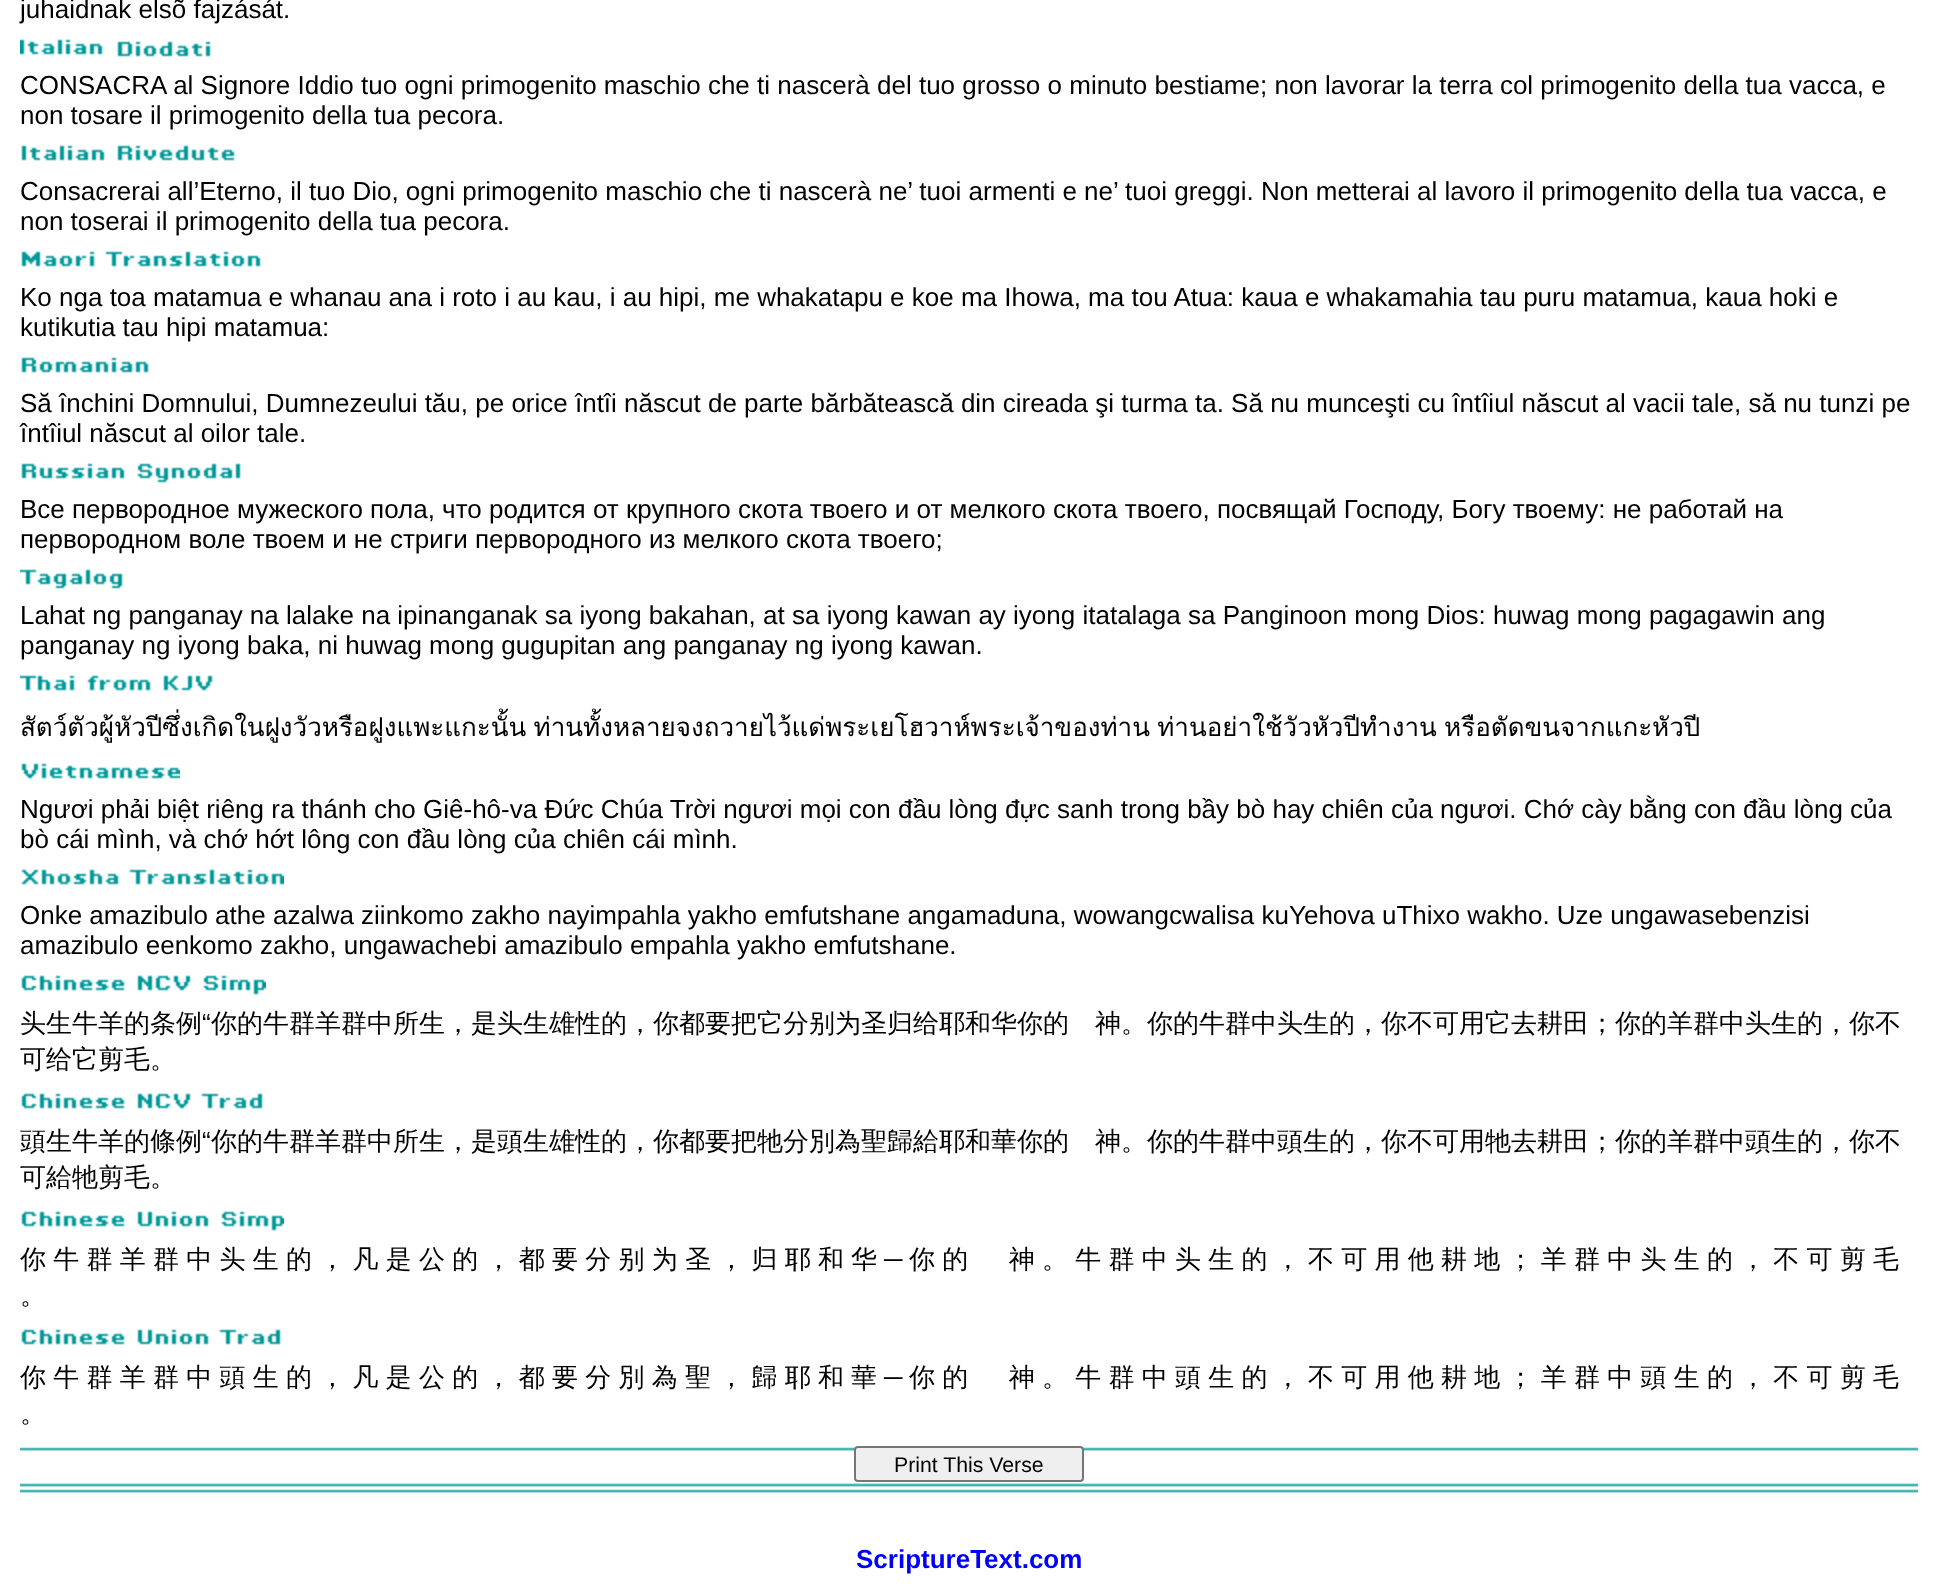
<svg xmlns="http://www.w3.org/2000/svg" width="1937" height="1590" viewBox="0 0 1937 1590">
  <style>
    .t1 { font: 26px Liberation Sans; fill: #000; }
    .t2 { font: 26px Loma; fill: #000; }
    .t3 { font: 500 26px WenQuanYi Zen Hei; fill: #000; }
    .t4 { font: 21.25px Liberation Sans; fill: #000; }
    .t5 { font: bold 26px Liberation Sans; fill: #00f; }
  </style>
  <rect width="100%" height="100%" fill="#fff"/>
  <text x="20" y="18" class="t1">juhaidnak elsõ fajzását.</text>
  <image x="20" y="39" width="191" height="18" href="images/1.png"/>
  <text x="20" y="94" class="t1">CONSACRA al Signore Iddio tuo ogni primogenito maschio che ti nascerà del tuo grosso o minuto bestiame; non lavorar la terra col primogenito della tua vacca, e</text>
  <text x="20" y="124" class="t1">non tosare il primogenito della tua pecora.</text>
  <image x="21" y="145" width="214" height="16" href="images/2.png"/>
  <text x="20" y="200" class="t1">Consacrerai all’Eterno, il tuo Dio, ogni primogenito maschio che ti nascerà ne’ tuoi armenti e ne’ tuoi greggi. Non metterai al lavoro il primogenito della tua vacca, e</text>
  <text x="20" y="230" class="t1">non toserai il primogenito della tua pecora.</text>
  <image x="21" y="251" width="240" height="16" href="images/3.png"/>
  <text x="20" y="306" class="t1">Ko nga toa matamua e whanau ana i roto i au kau, i au hipi, me whakatapu e koe ma Ihowa, ma tou Atua: kaua e whakamahia tau puru matamua, kaua hoki e</text>
  <text x="20" y="336" class="t1">kutikutia tau hipi matamua:</text>
  <image x="21" y="357" width="128" height="16" href="images/4.png"/>
  <text x="20" y="412" class="t1">Să închini Domnului, Dumnezeului tău, pe orice întîi născut de parte bărbătească din cireada şi turma ta. Să nu munceşti cu întîiul născut al vacii tale, să nu tunzi pe</text>
  <text x="20" y="442" class="t1">întîiul născut al oilor tale.</text>
  <image x="21" y="463" width="220" height="20" href="images/5.png"/>
  <text x="20" y="518" class="t1">Все первородное мужеского пола, что родится от крупного скота твоего и от мелкого скота твоего, посвящай Господу, Богу твоему: не работай на</text>
  <text x="20" y="548" class="t1">первородном воле твоем и не стриги первородного из мелкого скота твоего;</text>
  <image x="20" y="569" width="103" height="20" href="images/6.png"/>
  <text x="20" y="624" class="t1">Lahat ng panganay na lalake na ipinanganak sa iyong bakahan, at sa iyong kawan ay iyong itatalaga sa Panginoon mong Dios: huwag mong pagagawin ang</text>
  <text x="20" y="654" class="t1">panganay ng iyong baka, ni huwag mong gugupitan ang panganay ng iyong kawan.</text>
  <image x="20" y="675" width="193" height="16" href="images/7.png"/>
  <text x="20" y="736" word-spacing="-1.5" class="t2">สัตว์ตัวผู้หัวปีซึ่งเกิดในฝูงวัวหรือฝูงแพะแกะนั้น ท่านทั้งหลายจงถวายไว้แด่พระเยโฮวาห์พระเจ้าของท่าน ท่านอย่าใช้วัวหัวปีทำงาน หรือตัดขนจากแกะหัวปี</text>
  <image x="21" y="763" width="159" height="16" href="images/8.png"/>
  <text x="20" y="818" class="t1">Ngươi phải biệt riêng ra thánh cho Giê-hô-va Ðức Chúa Trời ngươi mọi con đầu lòng đực sanh trong bầy bò hay chiên của ngươi. Chớ cày bằng con đầu lòng của</text>
  <text x="20" y="848" class="t1">bò cái mình, và chớ hớt lông con đầu lòng của chiên cái mình.</text>
  <image x="21" y="869" width="263" height="16" href="images/9.png"/>
  <text x="20" y="924" class="t1">Onke amazibulo athe azalwa ziinkomo zakho nayimpahla yakho emfutshane angamaduna, wowangcwalisa kuYehova uThixo wakho. Uze ungawasebenzisi</text>
  <text x="20" y="954" class="t1">amazibulo eenkomo zakho, ungawachebi amazibulo empahla yakho emfutshane.</text>
  <image x="21" y="975" width="245" height="20" href="images/10.png"/>
  <text x="20" y="1032" class="t3">头生牛羊的条例</text>
  <text x="202" y="1032" class="t1">“</text>
  <text x="211" y="1032" class="t3">你的牛群羊群中所生，是头生雄性的，你都要把它分别为圣归给耶和华你的　神。你的牛群中头生的，你不可用它去耕田；你的羊群中头生的，你不</text>
  <text x="20" y="1068" class="t3">可给它剪毛。</text>
  <image x="21" y="1093" width="242" height="16" href="images/11.png"/>
  <text x="20" y="1150" class="t3">頭生牛羊的條例</text>
  <text x="202" y="1150" class="t1">“</text>
  <text x="211" y="1150" class="t3">你的牛群羊群中所生，是頭生雄性的，你都要把牠分別為聖歸給耶和華你的　神。你的牛群中頭生的，你不可用牠去耕田；你的羊群中頭生的，你不</text>
  <text x="20" y="1186" class="t3">可給牠剪毛。</text>
  <image x="21" y="1211" width="263" height="20" href="images/12.png"/>
  <text x="20" y="1268" word-spacing="-0.55" class="t3">你 牛 群 羊 群 中 头 生 的 ， 凡 是 公 的 ， 都 要 分 别 为 圣 ， 归 耶 和 华</text>
  <text x="884" y="1268" class="t1">─</text>
  <text x="909" y="1268" word-spacing="-0.55" class="t3">你 的 　 神 。 牛 群 中 头 生 的 ， 不 可 用 他 耕 地 ； 羊 群 中 头 生 的 ， 不 可 剪 毛</text>
  <text x="20" y="1304" class="t3">。</text>
  <image x="21" y="1329" width="260" height="16" href="images/13.png"/>
  <text x="20" y="1386" word-spacing="-0.55" class="t3">你 牛 群 羊 群 中 頭 生 的 ， 凡 是 公 的 ， 都 要 分 別 為 聖 ， 歸 耶 和 華</text>
  <text x="884" y="1386" class="t1">─</text>
  <text x="909" y="1386" word-spacing="-0.55" class="t3">你 的 　 神 。 牛 群 中 頭 生 的 ， 不 可 用 他 耕 地 ； 羊 群 中 頭 生 的 ， 不 可 剪 毛</text>
  <text x="20" y="1422" class="t3">。</text>
  <image x="20" y="1447" width="1898" height="46" href="images/14.png"/>
  <rect x="855" y="1447" width="228" height="34" rx="3" fill="#efefef" stroke="#767676" stroke-width="2"/>
  <text x="894" y="1472" class="t4">Print This Verse</text>
  <text x="856" y="1568" class="t5">ScriptureText.com</text>
</svg>
